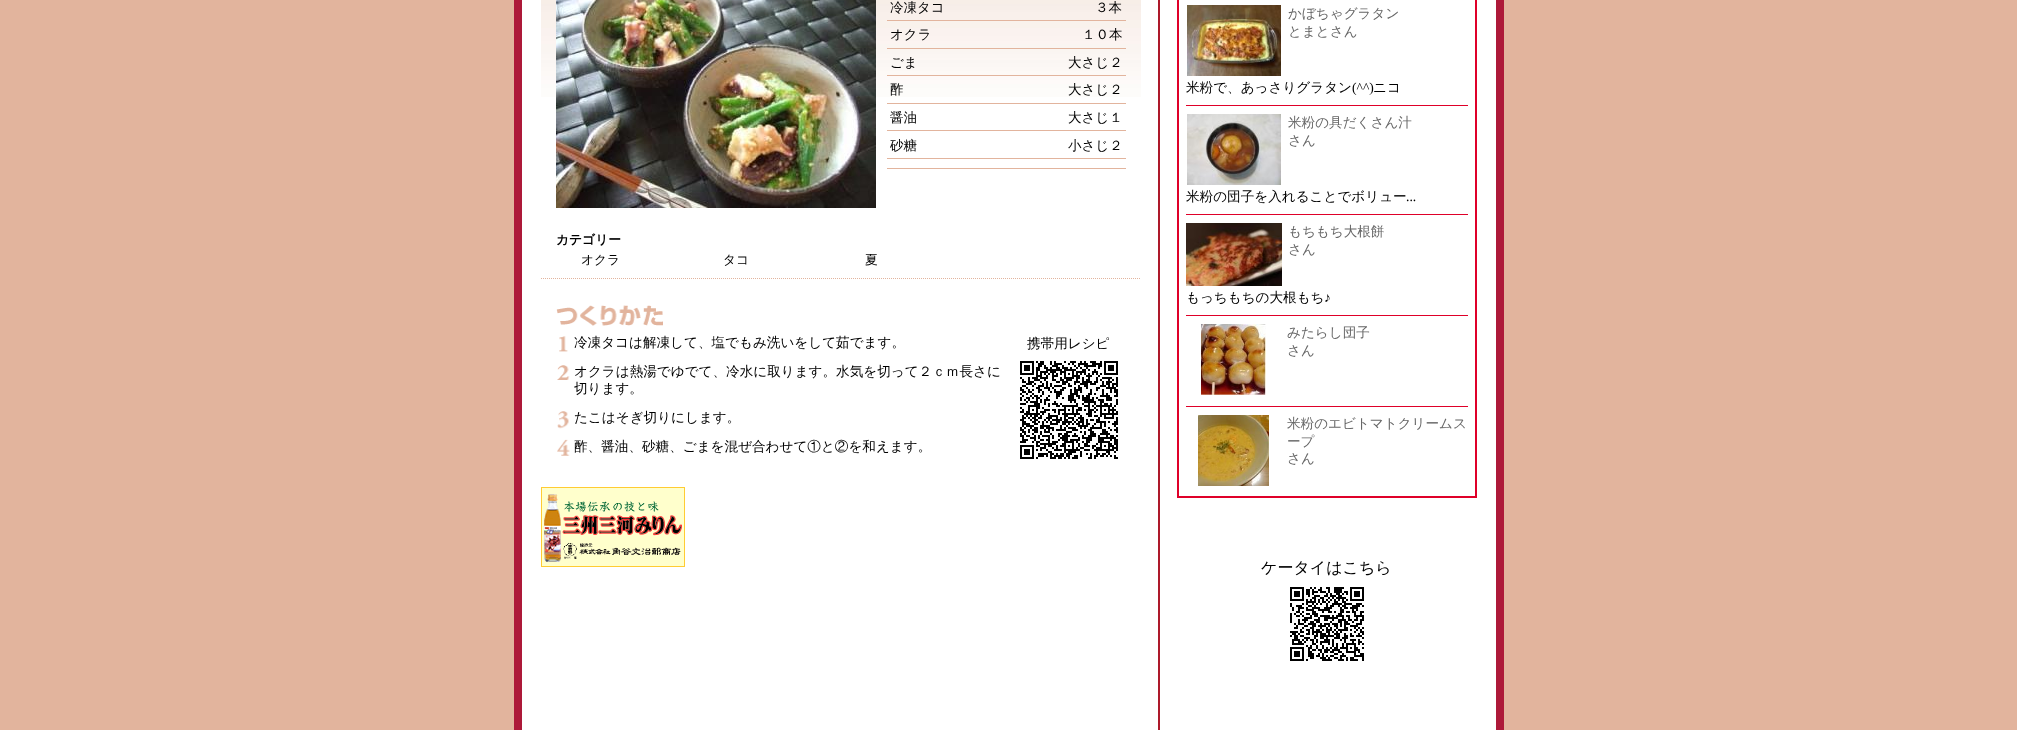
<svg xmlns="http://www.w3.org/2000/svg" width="2017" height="730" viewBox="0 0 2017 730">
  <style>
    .t1 { font: 500 13.5px WenQuanYi Zen Hei; fill: #000; }
    .t2 { font: bold 12.75px WenQuanYi Zen Hei; fill: #000; }
    .t3 { font: 500 12.75px WenQuanYi Zen Hei; fill: #000; }
    .t4 { font: 500 13.6px WenQuanYi Zen Hei; fill: #000; }
    .t5 { font: 500 13.6px WenQuanYi Zen Hei; fill: #666; }
    .t6 { font: 13.6px Liberation Serif; fill: #000; }
    .t7 { font: 500 16px WenQuanYi Zen Hei; fill: #000; }
  </style>
  <rect width="100%" height="100%" fill="#e2b49d"/>
  <rect x="522" y="0" width="974" height="730" fill="#fff"/>
  <rect x="1496" y="0" width="8" height="730" fill="#ad1939"/>
  <rect x="514" y="0" width="8" height="730" fill="#ad1939"/>
  <rect x="1158" y="0" width="2" height="730" fill="#ad192a"/>
  <image x="541" y="0" width="600" height="97" href="images/1.png"/>
  <image x="556" y="0" width="320" height="208" href="images/2.png"/>
  <rect x="887" y="20" width="239" height="1" fill="#e2b49d"/>
  <text x="890" y="12" class="t1">冷凍タコ</text>
  <text x="1095" y="12" class="t1">３本</text>
  <rect x="887" y="48" width="239" height="1" fill="#e2b49d"/>
  <text x="890" y="39" class="t1">オクラ</text>
  <text x="1082" y="39" class="t1">１０本</text>
  <rect x="887" y="75" width="239" height="1" fill="#e2b49d"/>
  <text x="890" y="67" class="t1">ごま</text>
  <text x="1068" y="67" class="t1">大さじ２</text>
  <rect x="887" y="103" width="239" height="1" fill="#e2b49d"/>
  <text x="890" y="94" class="t1">酢</text>
  <text x="1068" y="94" class="t1">大さじ２</text>
  <rect x="887" y="130" width="239" height="1" fill="#e2b49d"/>
  <text x="890" y="122" class="t1">醤油</text>
  <text x="1068" y="122" class="t1">大さじ１</text>
  <rect x="887" y="158" width="239" height="1" fill="#e2b49d"/>
  <text x="890" y="150" class="t1">砂糖</text>
  <text x="1068" y="150" class="t1">小さじ２</text>
  <rect x="887" y="168" width="239" height="1" fill="#e2b49d"/>
  <path d="M541 278.5H1141" fill="none" stroke="#e2b49d" stroke-dasharray="1 1"/>
  <text x="556" y="244" class="t2">カテゴリー</text>
  <text x="581" y="264" class="t3">オクラ</text>
  <text x="723" y="264" class="t3">タコ</text>
  <text x="865" y="264" class="t3">夏</text>
  <image x="556" y="305" width="107" height="21" href="images/3.png"/>
  <image x="559" y="336" width="9" height="16" href="images/4.png"/>
  <text x="574" y="347" class="t4">冷凍タコは解凍して、塩でもみ洗いをして茹でます。</text>
  <image x="557" y="365" width="13" height="15" href="images/5.png"/>
  <text x="574" y="376" class="t4">オクラは熱湯でゆでて、冷水に取ります。水気を切って２ｃｍ長さに</text>
  <text x="574" y="393" class="t4">切ります。</text>
  <image x="557" y="411" width="12" height="18" href="images/6.png"/>
  <text x="574" y="422" class="t4">たこはそぎ切りにします。</text>
  <image x="557" y="439" width="13" height="17" href="images/7.png"/>
  <text x="574" y="451" class="t4">酢、醤油、砂糖、ごまを混ぜ合わせて①と②を和えます。</text>
  <text x="1027" y="348" class="t4">携帯用レシピ</text>
  <image x="1020" y="361" width="98" height="98" href="images/8.png"/>
  <image x="541" y="487" width="144" height="80" href="images/9.png"/>
  <rect x="1178" y="-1" width="298" height="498" fill="none" stroke="#df0029" stroke-width="2"/>
  <image x="1187" y="5" width="94" height="71" href="images/10.png"/>
  <text x="1288" y="18" class="t5">かぼちゃグラタン</text>
  <text x="1288" y="36" class="t5">とまとさん</text>
  <text x="1186" y="92" class="t4">米粉で、あっさりグラタン</text>
  <text x="1352" y="92" class="t6">(^^)</text>
  <text x="1373" y="92" class="t4">ニコ</text>
  <rect x="1186" y="105" width="282" height="1" fill="#df0029"/>
  <image x="1187" y="114" width="94" height="71" href="images/11.png"/>
  <text x="1288" y="127" class="t5">米粉の具だくさん汁</text>
  <text x="1288" y="145" class="t5">さん</text>
  <text x="1186" y="201" class="t4">米粉の団子を入れることでボリュー</text>
  <text x="1406" y="201" class="t6">...</text>
  <rect x="1186" y="214" width="282" height="1" fill="#df0029"/>
  <image x="1186" y="223" width="96" height="63" href="images/12.png"/>
  <text x="1288" y="236" class="t5">もちもち大根餅</text>
  <text x="1288" y="254" class="t5">さん</text>
  <text x="1186" y="302" class="t4">もっちもちの大根もち</text>
  <text x="1324" y="302" class="t6">♪</text>
  <rect x="1186" y="315" width="282" height="1" fill="#df0029"/>
  <image x="1201" y="324" width="65" height="71" href="images/13.png"/>
  <text x="1287" y="337" class="t5">みたらし団子</text>
  <text x="1287" y="355" class="t5">さん</text>
  <rect x="1186" y="406" width="282" height="1" fill="#df0029"/>
  <image x="1198" y="415" width="71" height="71" href="images/14.png"/>
  <text x="1287" y="428" class="t5">米粉のエビトマトクリームス</text>
  <text x="1287" y="446" class="t5">ープ</text>
  <text x="1287" y="463" class="t5">さん</text>
  <text x="1261" y="573" class="t7">ケータイはこちら</text>
  <image x="1290" y="587" width="74" height="74" href="images/15.png"/>
</svg>
